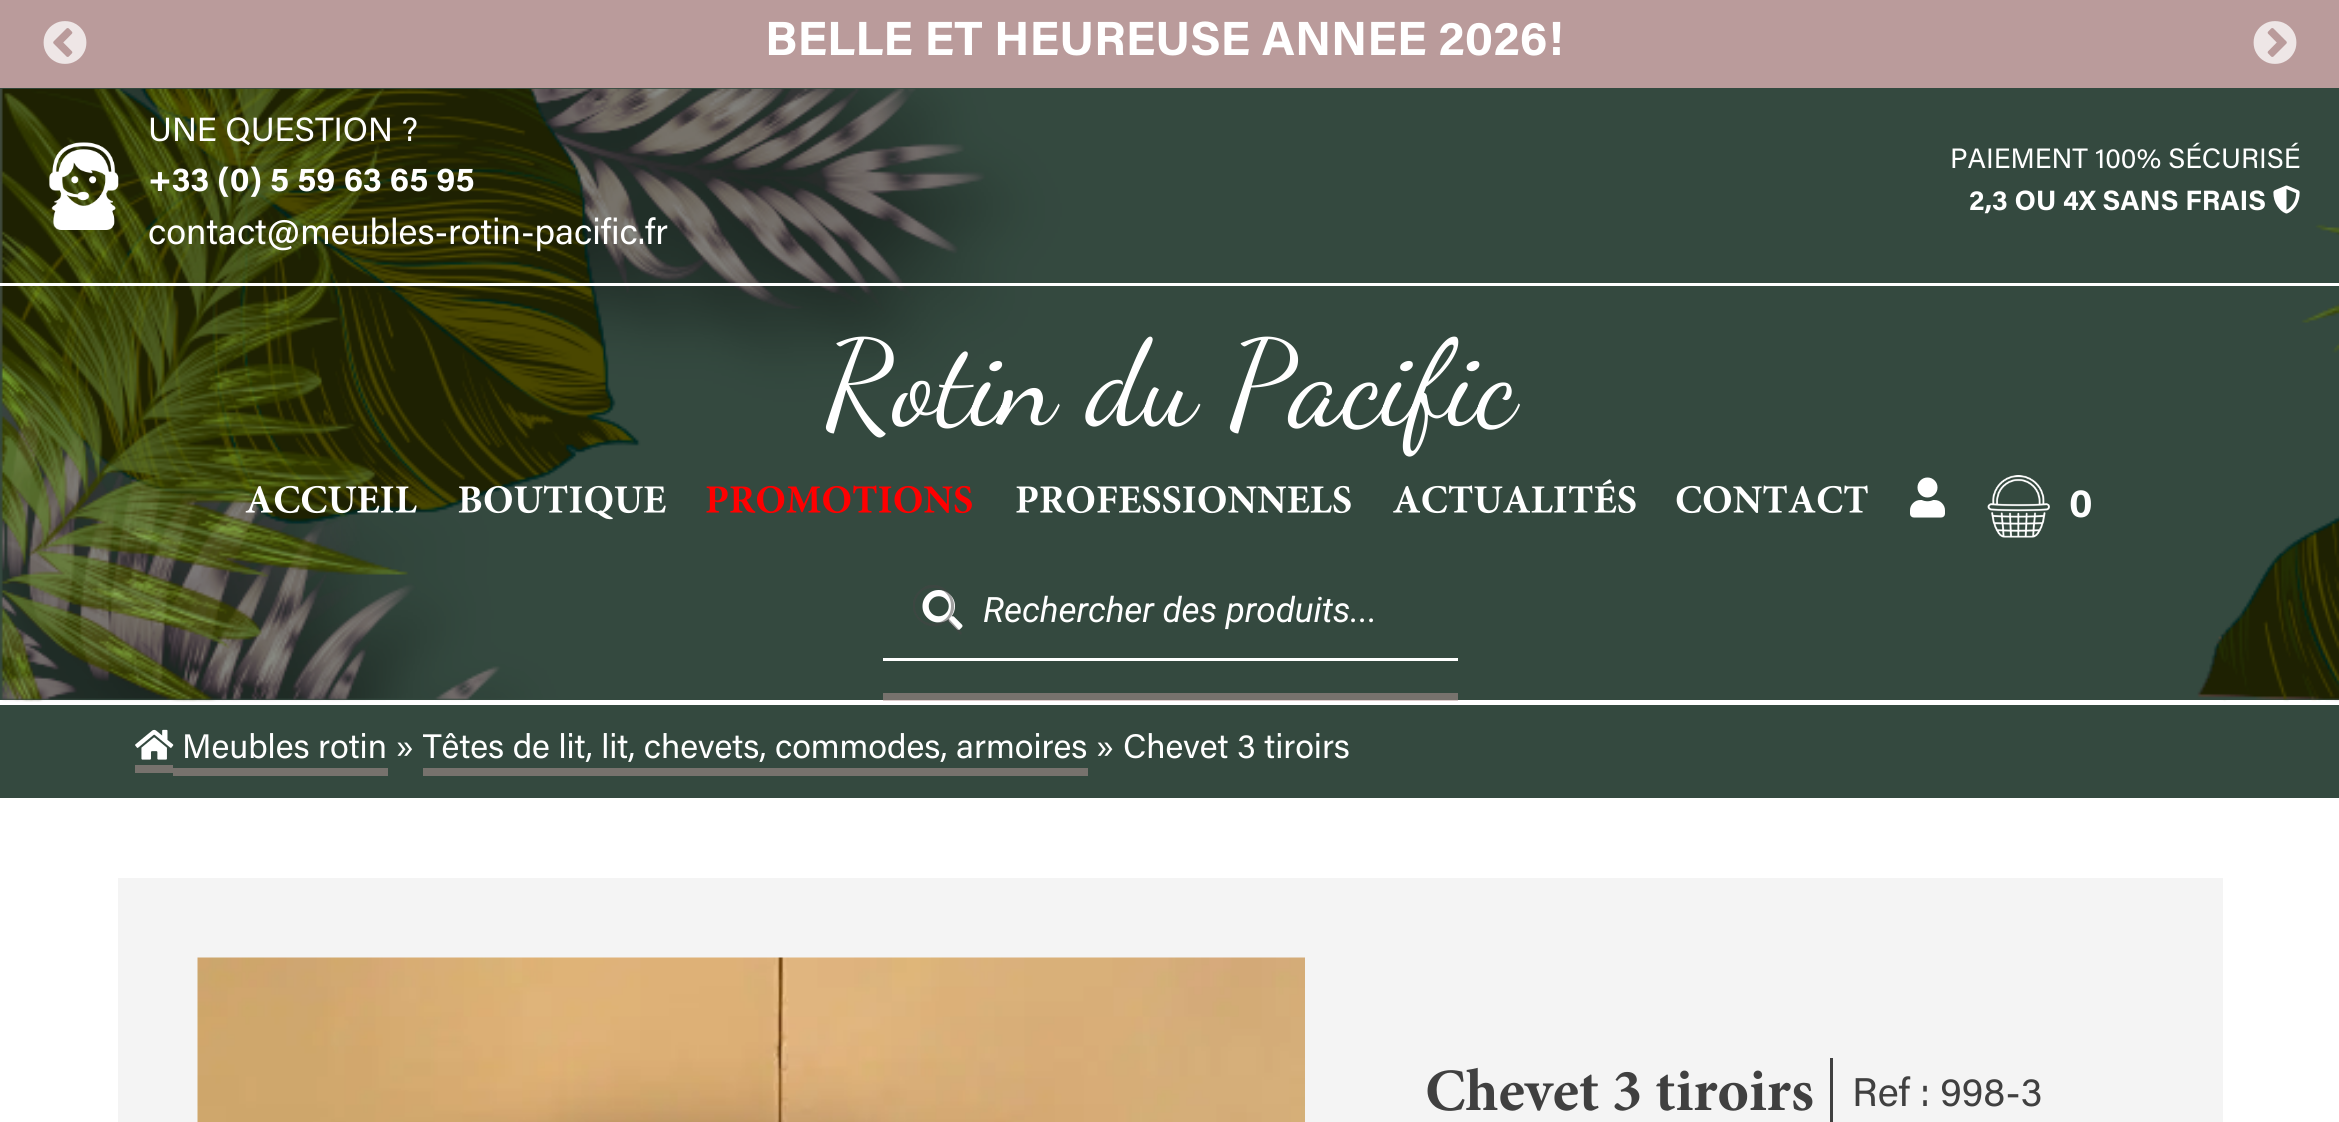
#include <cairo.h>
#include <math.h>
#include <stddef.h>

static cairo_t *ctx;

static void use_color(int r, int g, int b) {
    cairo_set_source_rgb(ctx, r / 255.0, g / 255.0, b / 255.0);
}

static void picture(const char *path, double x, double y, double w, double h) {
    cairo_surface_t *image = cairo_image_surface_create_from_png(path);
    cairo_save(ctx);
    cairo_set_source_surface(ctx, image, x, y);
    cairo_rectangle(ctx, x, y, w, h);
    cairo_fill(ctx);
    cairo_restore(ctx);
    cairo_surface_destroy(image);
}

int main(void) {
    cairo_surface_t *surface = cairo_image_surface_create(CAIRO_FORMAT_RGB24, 2339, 1122);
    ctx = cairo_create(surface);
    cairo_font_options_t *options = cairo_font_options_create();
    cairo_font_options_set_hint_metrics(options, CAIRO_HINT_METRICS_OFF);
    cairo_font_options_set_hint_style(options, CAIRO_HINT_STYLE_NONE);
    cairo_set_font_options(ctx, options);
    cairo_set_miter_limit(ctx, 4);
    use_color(255, 255, 255);
    cairo_paint(ctx);
    use_color(186, 155, 155);
    cairo_rectangle(ctx, 0, 0, 2339, 88);
    cairo_fill(ctx);
    picture("img1.png", 43, 21, 44, 43);
    cairo_select_font_face(ctx, "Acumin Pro", CAIRO_FONT_SLANT_NORMAL, CAIRO_FONT_WEIGHT_BOLD);
    cairo_set_font_size(ctx, 48);
    use_color(255, 255, 255);
    cairo_move_to(ctx, 765, 55);
    cairo_show_text(ctx, "BELLE ET HEUREUSE ANNEE 2026!");
    picture("img2.png", 2253, 21, 44, 43);
    use_color(52, 73, 63);
    cairo_rectangle(ctx, 0, 88, 2339, 612);
    cairo_fill(ctx);
    use_color(119, 114, 109);
    cairo_rectangle(ctx, 883, 693, 575, 7);
    cairo_fill(ctx);
    use_color(221, 205, 205);
    cairo_rectangle(ctx, 883, 700, 575, 1);
    cairo_fill(ctx);
    picture("img3.png", 0, 88, 2339, 614);
    use_color(255, 255, 255);
    cairo_rectangle(ctx, 0, 283, 2339, 3);
    cairo_fill(ctx);
    picture("img4.png", 49, 142, 70, 88);
    cairo_select_font_face(ctx, "Acumin Pro", CAIRO_FONT_SLANT_NORMAL, CAIRO_FONT_WEIGHT_NORMAL);
    cairo_set_font_size(ctx, 33.5);
    cairo_move_to(ctx, 148, 141);
    cairo_show_text(ctx, "UNE QUESTION ?");
    cairo_select_font_face(ctx, "Acumin Pro", CAIRO_FONT_SLANT_NORMAL, CAIRO_FONT_WEIGHT_BOLD);
    cairo_move_to(ctx, 148, 191);
    cairo_show_text(ctx, "+33 (0) 5 59 63 65 95");
    cairo_select_font_face(ctx, "Acumin Pro", CAIRO_FONT_SLANT_NORMAL, CAIRO_FONT_WEIGHT_NORMAL);
    cairo_set_font_size(ctx, 36);
    cairo_move_to(ctx, 148, 244);
    cairo_show_text(ctx, "contact@meubles-rotin-pacific.fr");
    cairo_set_font_size(ctx, 28);
    cairo_move_to(ctx, 1950, 168);
    cairo_show_text(ctx, "PAIEMENT 100% SÉCURISÉ");
    cairo_select_font_face(ctx, "Acumin Pro", CAIRO_FONT_SLANT_NORMAL, CAIRO_FONT_WEIGHT_BOLD);
    cairo_move_to(ctx, 1969, 210);
    cairo_show_text(ctx, "2,3 OU 4X SANS FRAIS");
    picture("img5.png", 2273, 185, 27, 29);
    cairo_select_font_face(ctx, "Dancing Script", CAIRO_FONT_SLANT_NORMAL, CAIRO_FONT_WEIGHT_NORMAL);
    cairo_set_font_size(ctx, 120);
    cairo_move_to(ctx, 824, 423);
    cairo_show_text(ctx, "Rotin du Pacific");
    picture("img6.png", 245, 485, 172, 29);
    picture("img7.png", 458, 485, 208, 35);
    picture("img8.png", 706, 485, 266, 29);
    picture("img9.png", 1016, 485, 335, 29);
    picture("img10.png", 1393, 479, 243, 35);
    picture("img11.png", 1676, 485, 192, 29);
    picture("img12.png", 1910, 477, 35, 41);
    picture("img13.png", 1987, 475, 63, 63);
    cairo_select_font_face(ctx, "Acumin Pro", CAIRO_FONT_SLANT_NORMAL, CAIRO_FONT_WEIGHT_BOLD);
    cairo_set_font_size(ctx, 40);
    cairo_move_to(ctx, 2069, 517);
    cairo_show_text(ctx, "0");
    picture("img14.png", 922, 590, 41, 40);
    cairo_save(ctx);
    cairo_rectangle(ctx, 913, 585, 50, 50);
    cairo_clip(ctx);
    cairo_set_source_rgba(ctx, 0.267, 0.267, 0.267, 0.5);
    cairo_new_path(ctx);
    cairo_move_to(ctx, 962, 633);
    cairo_line_to(ctx, 949, 619);
    cairo_curve_to(ctx, 966, 600, 937, 572, 919, 591);
    cairo_curve_to(ctx, 900, 610, 927, 638, 947, 621);
    cairo_line_to(ctx, 961, 635);
    cairo_close_path(ctx);
    cairo_move_to(ctx, 915, 606);
    cairo_curve_to(ctx, 915, 582, 951, 582, 951, 606);
    cairo_curve_to(ctx, 951, 629, 915, 629, 915, 606);
    cairo_close_path(ctx);
    cairo_fill(ctx);
    cairo_restore(ctx);
    cairo_rectangle(ctx, 883, 658, 575, 3);
    cairo_fill(ctx);
    cairo_select_font_face(ctx, "Roboto", CAIRO_FONT_SLANT_ITALIC, CAIRO_FONT_WEIGHT_NORMAL);
    cairo_set_font_size(ctx, 35);
    cairo_move_to(ctx, 983, 622);
    cairo_show_text(ctx, "Rechercher des produits...");
    use_color(52, 73, 63);
    cairo_rectangle(ctx, 0, 705, 2339, 93);
    cairo_fill(ctx);
    use_color(119, 114, 109);
    cairo_rectangle(ctx, 135, 765, 38, 8);
    cairo_fill(ctx);
    cairo_rectangle(ctx, 173, 768, 215, 8);
    cairo_fill(ctx);
    picture("img15.png", 135, 729, 39, 31);
    cairo_select_font_face(ctx, "Acumin Pro", CAIRO_FONT_SLANT_NORMAL, CAIRO_FONT_WEIGHT_NORMAL);
    cairo_set_font_size(ctx, 34);
    use_color(255, 255, 255);
    cairo_move_to(ctx, 182, 758);
    cairo_show_text(ctx, "Meubles rotin » Têtes de lit, lit, chevets, commodes, armoires » Chevet 3 tiroirs");
    use_color(119, 114, 109);
    cairo_rectangle(ctx, 423, 768, 665, 8);
    cairo_fill(ctx);
    use_color(244, 244, 244);
    cairo_rectangle(ctx, 118, 878, 2105, 244);
    cairo_fill(ctx);
    picture("img16.png", 197, 957, 1108, 165);
    picture("img17.png", 1427, 1067, 386, 44);
    use_color(64, 64, 64);
    cairo_rectangle(ctx, 1830, 1058, 3, 64);
    cairo_fill(ctx);
    cairo_set_font_size(ctx, 40);
    cairo_move_to(ctx, 1852, 1106);
    cairo_show_text(ctx, "Ref : 998-3");
    cairo_surface_write_to_png(surface, "result.png");
    cairo_font_options_destroy(options);
    cairo_destroy(ctx);
    cairo_surface_destroy(surface);
    return 0;
}
